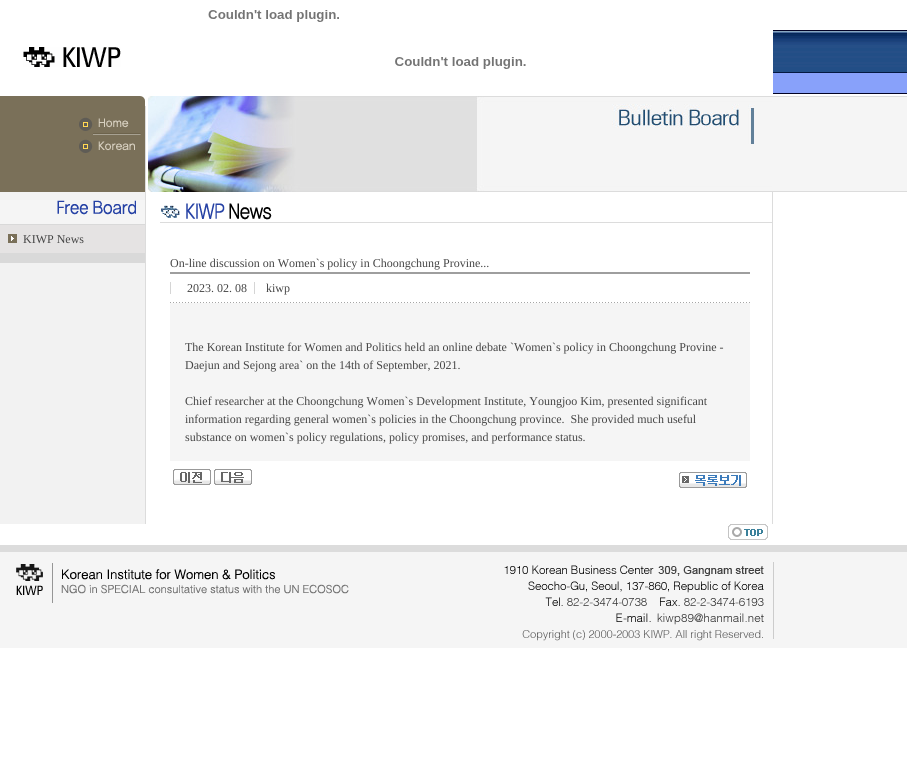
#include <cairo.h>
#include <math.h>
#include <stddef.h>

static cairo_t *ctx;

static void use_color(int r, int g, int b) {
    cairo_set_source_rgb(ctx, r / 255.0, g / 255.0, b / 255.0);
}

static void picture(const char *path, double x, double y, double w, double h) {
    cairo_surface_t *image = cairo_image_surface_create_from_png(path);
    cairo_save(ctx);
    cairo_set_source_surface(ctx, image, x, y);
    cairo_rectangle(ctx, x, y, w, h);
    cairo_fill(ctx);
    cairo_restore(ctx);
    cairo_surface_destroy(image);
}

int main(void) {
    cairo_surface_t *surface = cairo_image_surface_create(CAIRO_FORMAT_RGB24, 907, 758);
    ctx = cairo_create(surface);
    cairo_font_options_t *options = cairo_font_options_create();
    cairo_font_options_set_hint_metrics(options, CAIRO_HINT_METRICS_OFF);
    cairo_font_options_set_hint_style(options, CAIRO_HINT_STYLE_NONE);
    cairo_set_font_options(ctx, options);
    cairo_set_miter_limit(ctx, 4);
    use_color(255, 255, 255);
    cairo_paint(ctx);
    picture("img1.png", 208, 10, 131, 12);
    picture("img2.png", 23, 47, 98, 20);
    picture("img3.png", 395, 57, 131, 12);
    picture("img4.png", 773, 30, 134, 64);
    use_color(220, 220, 220);
    cairo_rectangle(ctx, 772, 96, 1, 428);
    cairo_fill(ctx);
    use_color(245, 245, 245);
    cairo_rectangle(ctx, 772, 97, 135, 94);
    cairo_fill(ctx);
    use_color(242, 242, 242);
    cairo_rectangle(ctx, 0, 192, 145, 332);
    cairo_fill(ctx);
    use_color(122, 112, 89);
    cairo_rectangle(ctx, 0, 96, 145, 96);
    cairo_fill(ctx);
    picture("img5.png", 140, 96, 5, 5);
    picture("img6.png", 79, 117, 62, 18);
    picture("img7.png", 79, 139, 56, 14);
    picture("img8.png", 0, 200, 145, 25);
    use_color(229, 227, 227);
    cairo_rectangle(ctx, 0, 225, 145, 28);
    cairo_fill(ctx);
    picture("img9.png", 8, 234, 9, 9);
    cairo_select_font_face(ctx, "Liberation Serif", CAIRO_FONT_SLANT_NORMAL, CAIRO_FONT_WEIGHT_NORMAL);
    cairo_set_font_size(ctx, 12);
    use_color(69, 69, 69);
    cairo_move_to(ctx, 23, 243);
    cairo_show_text(ctx, "KIWP News");
    use_color(217, 217, 217);
    cairo_rectangle(ctx, 0, 253, 145, 10);
    cairo_fill(ctx);
    use_color(220, 220, 220);
    cairo_rectangle(ctx, 145, 106, 1, 418);
    cairo_fill(ctx);
    cairo_rectangle(ctx, 773, 96, 134, 1);
    cairo_fill(ctx);
    cairo_rectangle(ctx, 773, 191, 134, 1);
    cairo_fill(ctx);
    picture("img10.png", 148, 96, 624, 96);
    picture("img11.png", 161, 203, 111, 17);
    cairo_rectangle(ctx, 160, 222, 612, 1);
    cairo_fill(ctx);
    use_color(69, 69, 69);
    cairo_move_to(ctx, 170, 267);
    cairo_show_text(ctx, "On-line discussion on Women`s policy in Choongchung Provine...");
    use_color(158, 158, 158);
    cairo_rectangle(ctx, 170, 272, 580, 2);
    cairo_fill(ctx);
    use_color(213, 213, 213);
    cairo_rectangle(ctx, 170, 282, 1, 12);
    cairo_fill(ctx);
    use_color(69, 69, 69);
    cairo_move_to(ctx, 187, 292);
    cairo_show_text(ctx, "2023. 02. 08");
    use_color(213, 213, 213);
    cairo_rectangle(ctx, 254, 282, 1, 12);
    cairo_fill(ctx);
    use_color(69, 69, 69);
    cairo_move_to(ctx, 266, 292);
    cairo_show_text(ctx, "kiwp");
    picture("img12.png", 170, 302, 580, 1);
    use_color(245, 245, 245);
    cairo_rectangle(ctx, 170, 303, 580, 158);
    cairo_fill(ctx);
    use_color(69, 69, 69);
    cairo_move_to(ctx, 185, 351);
    cairo_show_text(ctx, "The Korean Institute for Women and Politics held an online debate `Women`s policy in Choongchung Provine -");
    cairo_move_to(ctx, 185, 369);
    cairo_show_text(ctx, "Daejun and Sejong area` on the 14th of September, 2021.");
    cairo_move_to(ctx, 185, 405);
    cairo_show_text(ctx, "Chief researcher at the Choongchung Women`s Development Institute, Youngjoo Kim, presented significant");
    cairo_move_to(ctx, 185, 423);
    cairo_show_text(ctx, "information regarding general women`s policies in the Choongchung province.  She provided much useful");
    cairo_move_to(ctx, 185, 441);
    cairo_show_text(ctx, "substance on women`s policy regulations, policy promises, and performance status.");
    picture("img13.png", 173, 469, 38, 16);
    picture("img14.png", 214, 469, 38, 16);
    picture("img15.png", 679, 472, 68, 16);
    picture("img16.png", 728, 524, 40, 16);
    use_color(220, 220, 220);
    cairo_rectangle(ctx, 0, 545, 907, 7);
    cairo_fill(ctx);
    use_color(245, 245, 245);
    cairo_rectangle(ctx, 0, 552, 907, 96);
    cairo_fill(ctx);
    picture("img17.png", 16, 563, 333, 40);
    picture("img18.png", 504, 562, 270, 79);
    cairo_surface_write_to_png(surface, "result.png");
    cairo_font_options_destroy(options);
    cairo_destroy(ctx);
    cairo_surface_destroy(surface);
    return 0;
}
